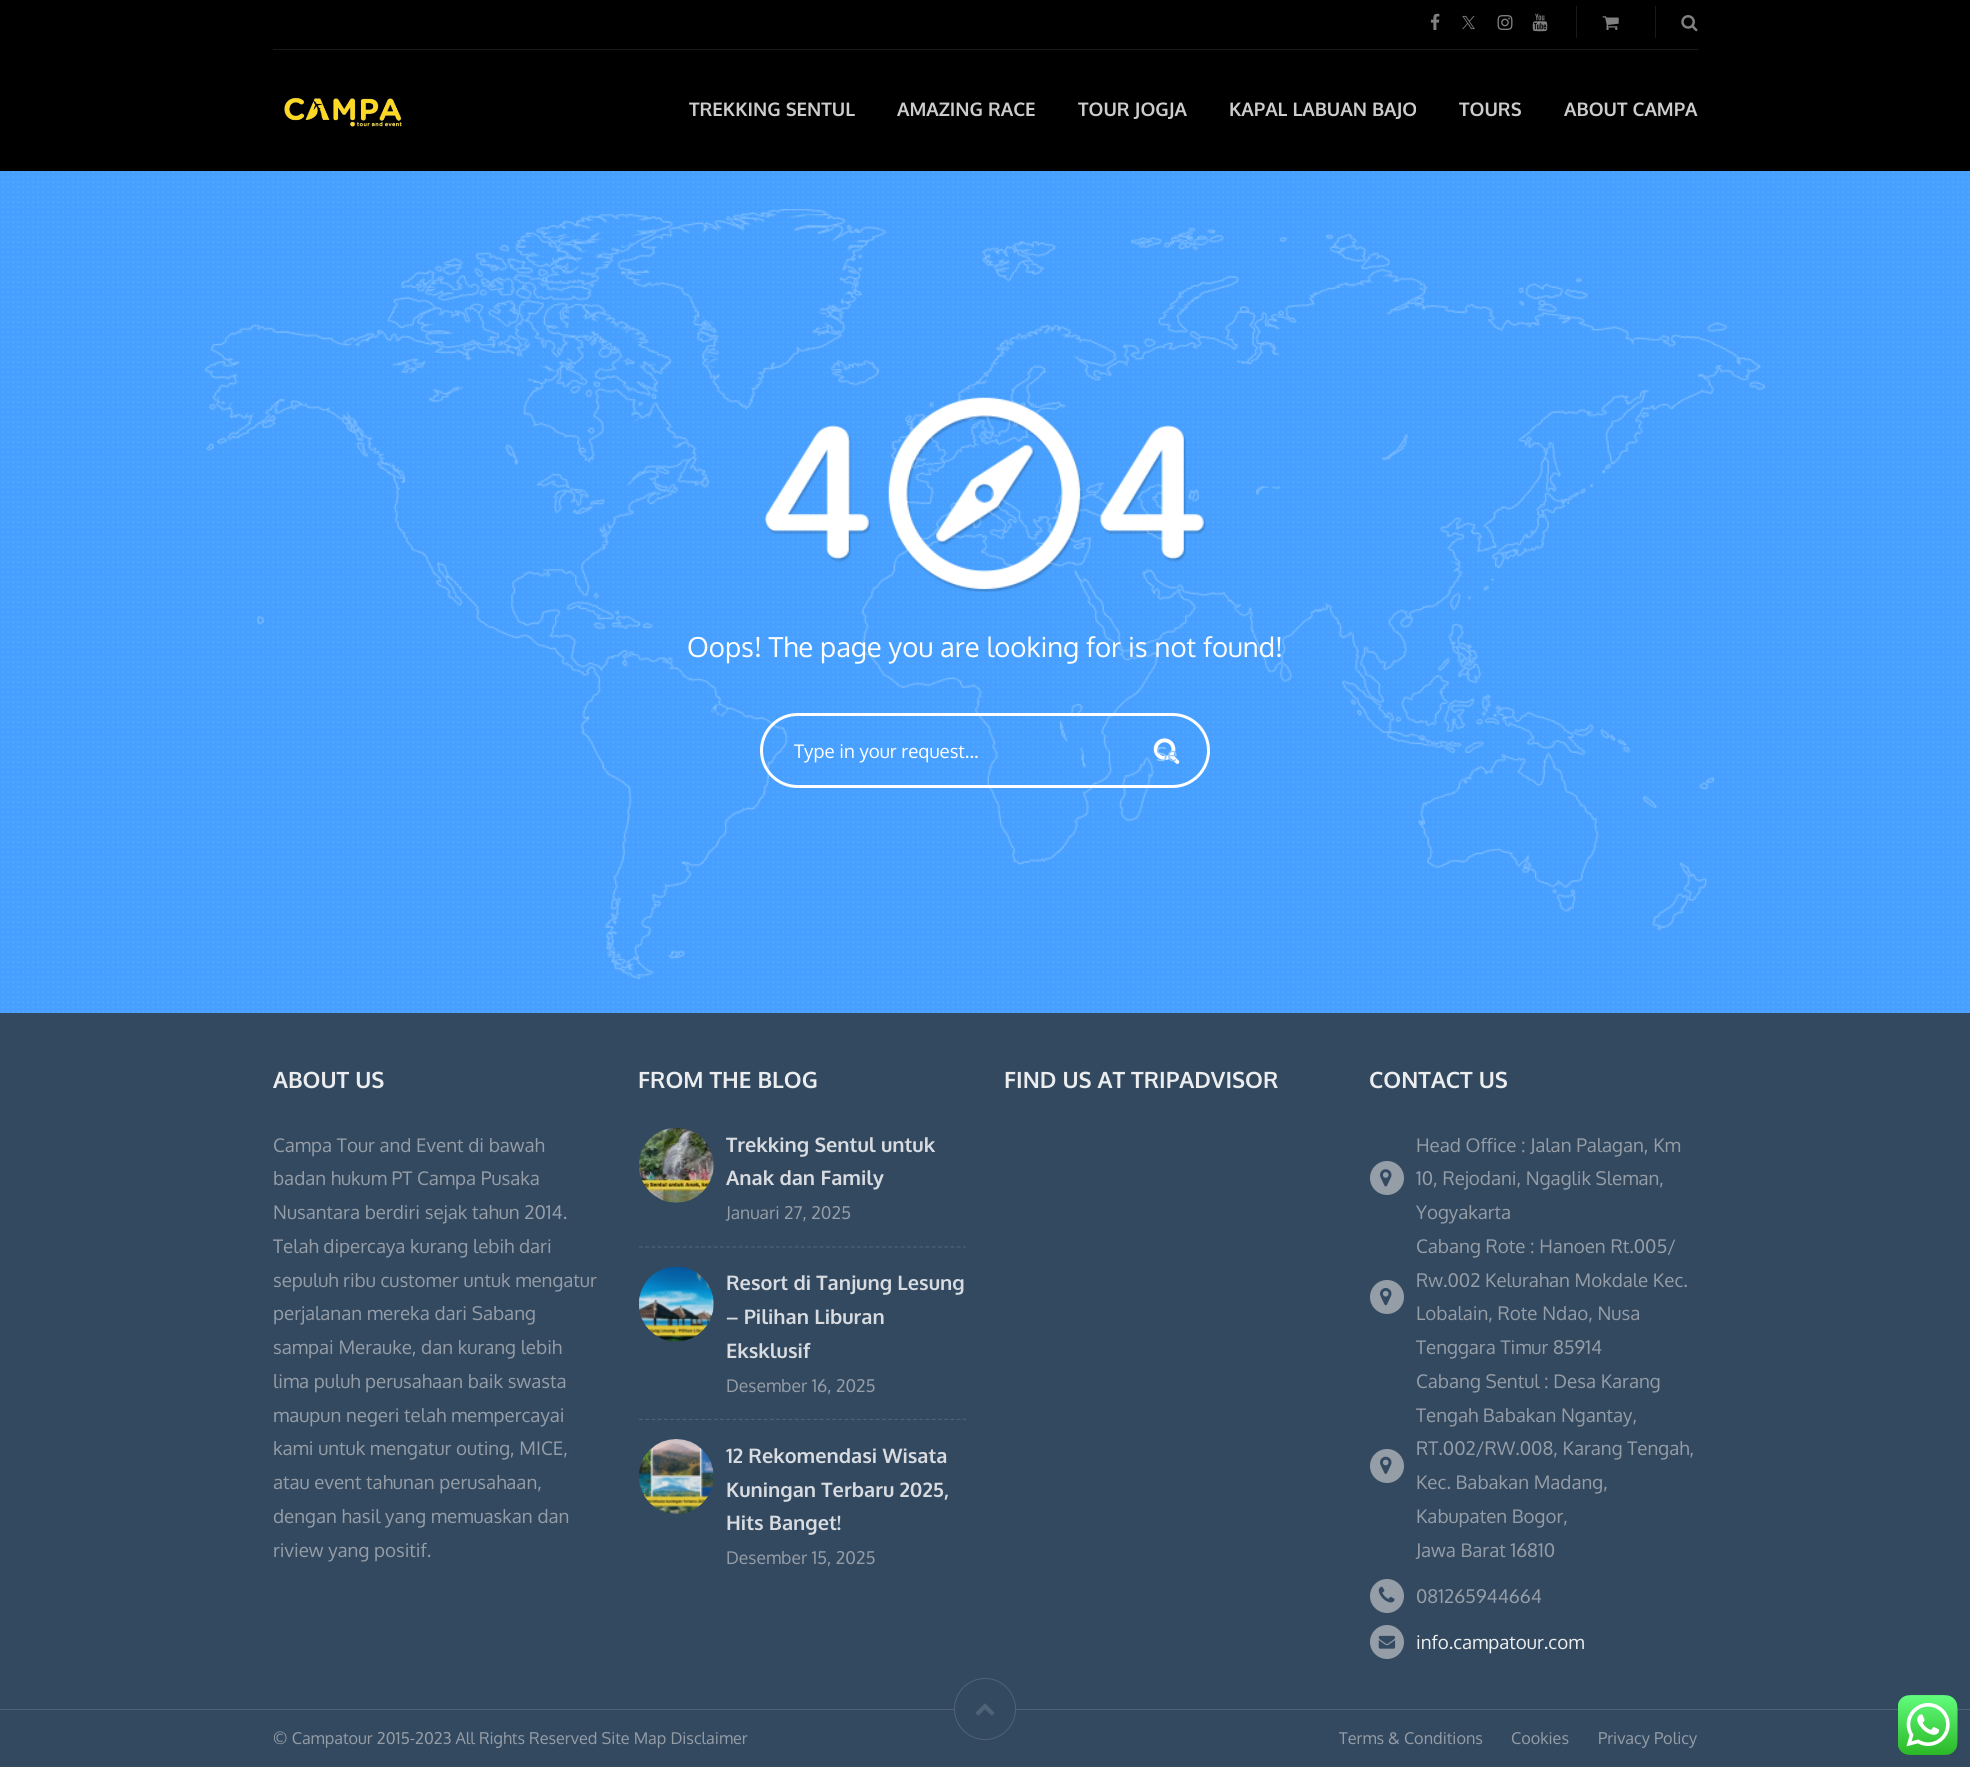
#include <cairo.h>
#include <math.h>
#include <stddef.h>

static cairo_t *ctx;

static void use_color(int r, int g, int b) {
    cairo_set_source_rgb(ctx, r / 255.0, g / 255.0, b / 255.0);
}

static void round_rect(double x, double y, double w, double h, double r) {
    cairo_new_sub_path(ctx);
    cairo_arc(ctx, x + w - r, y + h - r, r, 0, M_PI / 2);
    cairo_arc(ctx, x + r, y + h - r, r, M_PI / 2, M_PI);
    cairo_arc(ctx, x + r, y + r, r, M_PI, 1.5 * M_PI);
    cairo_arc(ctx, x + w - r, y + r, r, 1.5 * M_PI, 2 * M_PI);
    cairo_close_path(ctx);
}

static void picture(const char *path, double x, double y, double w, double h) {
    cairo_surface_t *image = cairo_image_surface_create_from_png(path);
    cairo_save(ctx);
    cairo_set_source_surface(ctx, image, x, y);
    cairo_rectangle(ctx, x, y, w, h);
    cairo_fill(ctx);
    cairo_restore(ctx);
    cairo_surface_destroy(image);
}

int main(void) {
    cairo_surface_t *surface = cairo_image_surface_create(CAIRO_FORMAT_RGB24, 1970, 1767);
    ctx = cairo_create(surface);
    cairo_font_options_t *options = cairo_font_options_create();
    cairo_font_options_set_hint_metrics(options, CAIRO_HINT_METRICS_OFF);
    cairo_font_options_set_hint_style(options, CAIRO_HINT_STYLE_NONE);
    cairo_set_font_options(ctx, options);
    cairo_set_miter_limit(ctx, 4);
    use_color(0, 0, 0);
    cairo_paint(ctx);
    picture("img1.png", 1430, 13, 10, 17);
    picture("img2.png", 1462, 15, 13, 15);
    picture("img3.png", 1497, 15, 16, 15);
    picture("img4.png", 1532, 13, 16, 19);
    use_color(26, 26, 26);
    cairo_rectangle(ctx, 1576, 6, 1, 32);
    cairo_fill(ctx);
    picture("img5.png", 1602, 16, 17, 14);
    cairo_rectangle(ctx, 1655, 6, 1, 32);
    cairo_fill(ctx);
    picture("img6.png", 1681, 15, 17, 17);
    cairo_rectangle(ctx, 273, 49, 1425, 1);
    cairo_fill(ctx);
    picture("img7.png", 284, 98, 118, 29);
    cairo_select_font_face(ctx, "Oxygen", CAIRO_FONT_SLANT_NORMAL, CAIRO_FONT_WEIGHT_BOLD);
    cairo_set_font_size(ctx, 18.75);
    use_color(204, 204, 204);
    cairo_move_to(ctx, 689, 116);
    cairo_show_text(ctx, "TREKKING SENTUL");
    cairo_move_to(ctx, 897, 116);
    cairo_show_text(ctx, "AMAZING RACE");
    cairo_move_to(ctx, 1078, 116);
    cairo_show_text(ctx, "TOUR JOGJA");
    cairo_move_to(ctx, 1229, 116);
    cairo_show_text(ctx, "KAPAL LABUAN BAJO");
    cairo_move_to(ctx, 1459, 116);
    cairo_show_text(ctx, "TOURS");
    cairo_move_to(ctx, 1564, 116);
    cairo_show_text(ctx, "ABOUT CAMPA");
    use_color(71, 160, 255);
    cairo_rectangle(ctx, 0, 171, 1970, 842);
    cairo_fill(ctx);
    picture("img8.png", 2, 171, 1967, 842);
    picture("img10.png", 764, 397, 442, 195);
    picture("img9.png", 205, 209, 1560, 770);
    cairo_select_font_face(ctx, "Oxygen", CAIRO_FONT_SLANT_NORMAL, CAIRO_FONT_WEIGHT_NORMAL);
    cairo_set_font_size(ctx, 27.5);
    use_color(255, 255, 255);
    cairo_move_to(ctx, 687, 657);
    cairo_show_text(ctx, "Oops! The page you are looking for is not found!");
    picture("img11.png", 1153, 738, 27, 26);
    round_rect(761.5, 714.5, 447, 72, 36);
    cairo_set_line_width(ctx, 3);
    cairo_stroke(ctx);
    cairo_set_font_size(ctx, 18.75);
    cairo_move_to(ctx, 794, 758);
    cairo_show_text(ctx, "Type in your request...");
    use_color(146, 199, 255);
    cairo_move_to(ctx, 1156, 761);
    cairo_show_text(ctx, "Se");
    use_color(51, 73, 96);
    cairo_rectangle(ctx, 0, 1013, 1970, 754);
    cairo_fill(ctx);
    cairo_select_font_face(ctx, "Oxygen", CAIRO_FONT_SLANT_NORMAL, CAIRO_FONT_WEIGHT_BOLD);
    cairo_set_font_size(ctx, 22.5);
    use_color(235, 237, 239);
    cairo_move_to(ctx, 273, 1088);
    cairo_show_text(ctx, "ABOUT US");
    cairo_select_font_face(ctx, "Oxygen", CAIRO_FONT_SLANT_NORMAL, CAIRO_FONT_WEIGHT_NORMAL);
    cairo_set_font_size(ctx, 18.75);
    use_color(149, 157, 167);
    cairo_move_to(ctx, 273, 1152);
    cairo_show_text(ctx, "Campa Tour and Event di bawah");
    cairo_move_to(ctx, 273, 1185);
    cairo_show_text(ctx, "badan hukum PT Campa Pusaka");
    cairo_move_to(ctx, 273, 1219);
    cairo_show_text(ctx, "Nusantara berdiri sejak tahun 2014.");
    cairo_move_to(ctx, 273, 1253);
    cairo_show_text(ctx, "Telah dipercaya kurang lebih dari");
    cairo_move_to(ctx, 273, 1287);
    cairo_show_text(ctx, "sepuluh ribu customer untuk mengatur");
    cairo_move_to(ctx, 273, 1320);
    cairo_show_text(ctx, "perjalanan mereka dari Sabang");
    cairo_move_to(ctx, 273, 1354);
    cairo_show_text(ctx, "sampai Merauke, dan kurang lebih");
    cairo_move_to(ctx, 273, 1388);
    cairo_show_text(ctx, "lima puluh perusahaan baik swasta");
    cairo_move_to(ctx, 273, 1422);
    cairo_show_text(ctx, "maupun negeri telah mempercayai");
    cairo_move_to(ctx, 273, 1455);
    cairo_show_text(ctx, "kami untuk mengatur outing, MICE,");
    cairo_move_to(ctx, 273, 1489);
    cairo_show_text(ctx, "atau event tahunan perusahaan,");
    cairo_move_to(ctx, 273, 1523);
    cairo_show_text(ctx, "dengan hasil yang memuaskan dan");
    cairo_move_to(ctx, 273, 1557);
    cairo_show_text(ctx, "riview yang positif.");
    cairo_select_font_face(ctx, "Oxygen", CAIRO_FONT_SLANT_NORMAL, CAIRO_FONT_WEIGHT_BOLD);
    cairo_set_font_size(ctx, 22.5);
    use_color(235, 237, 239);
    cairo_move_to(ctx, 638, 1088);
    cairo_show_text(ctx, "FROM THE BLOG");
    picture("img12.png", 639, 1128, 75, 75);
    cairo_set_font_size(ctx, 20);
    use_color(216, 220, 225);
    cairo_move_to(ctx, 726, 1152);
    cairo_show_text(ctx, "Trekking Sentul untuk");
    cairo_move_to(ctx, 726, 1185);
    cairo_show_text(ctx, "Anak dan Family");
    cairo_select_font_face(ctx, "Oxygen", CAIRO_FONT_SLANT_NORMAL, CAIRO_FONT_WEIGHT_NORMAL);
    cairo_set_font_size(ctx, 17.5);
    use_color(149, 157, 167);
    cairo_move_to(ctx, 726, 1219);
    cairo_show_text(ctx, "Januari 27, 2025");
    cairo_new_path(ctx);
    cairo_move_to(ctx, 639, 1247);
    cairo_line_to(ctx, 966, 1247);
    use_color(80, 98, 117);
    cairo_set_line_width(ctx, 1.2);
    cairo_set_dash(ctx, (double[]){3.75, 2.48}, 2, 0);
    cairo_stroke(ctx);
    picture("img13.png", 639, 1266, 75, 76);
    cairo_select_font_face(ctx, "Oxygen", CAIRO_FONT_SLANT_NORMAL, CAIRO_FONT_WEIGHT_BOLD);
    cairo_set_font_size(ctx, 20);
    use_color(216, 220, 225);
    cairo_move_to(ctx, 726, 1290);
    cairo_show_text(ctx, "Resort di Tanjung Lesung");
    cairo_move_to(ctx, 726, 1324);
    cairo_show_text(ctx, "– Pilihan Liburan");
    cairo_move_to(ctx, 726, 1358);
    cairo_show_text(ctx, "Eksklusif");
    cairo_select_font_face(ctx, "Oxygen", CAIRO_FONT_SLANT_NORMAL, CAIRO_FONT_WEIGHT_NORMAL);
    cairo_set_font_size(ctx, 17.5);
    use_color(149, 157, 167);
    cairo_move_to(ctx, 726, 1392);
    cairo_show_text(ctx, "Desember 16, 2025");
    cairo_save(ctx);
    cairo_rectangle(ctx, 639, 1248, 327, 172);
    cairo_clip(ctx);
    cairo_new_path(ctx);
    cairo_move_to(ctx, 639, 1419.5);
    cairo_line_to(ctx, 966, 1419.5);
    use_color(80, 98, 117);
    cairo_stroke(ctx);
    cairo_restore(ctx);
    picture("img14.png", 639, 1439, 75, 75);
    cairo_select_font_face(ctx, "Oxygen", CAIRO_FONT_SLANT_NORMAL, CAIRO_FONT_WEIGHT_BOLD);
    cairo_set_font_size(ctx, 20);
    use_color(216, 220, 225);
    cairo_move_to(ctx, 726, 1463);
    cairo_show_text(ctx, "12 Rekomendasi Wisata");
    cairo_move_to(ctx, 726, 1497);
    cairo_show_text(ctx, "Kuningan Terbaru 2025,");
    cairo_move_to(ctx, 726, 1530);
    cairo_show_text(ctx, "Hits Banget!");
    cairo_select_font_face(ctx, "Oxygen", CAIRO_FONT_SLANT_NORMAL, CAIRO_FONT_WEIGHT_NORMAL);
    cairo_set_font_size(ctx, 17.5);
    use_color(149, 157, 167);
    cairo_move_to(ctx, 726, 1564);
    cairo_show_text(ctx, "Desember 15, 2025");
    cairo_select_font_face(ctx, "Oxygen", CAIRO_FONT_SLANT_NORMAL, CAIRO_FONT_WEIGHT_BOLD);
    cairo_set_font_size(ctx, 22.5);
    use_color(235, 237, 239);
    cairo_move_to(ctx, 1004, 1088);
    cairo_show_text(ctx, "FIND US AT TRIPADVISOR");
    cairo_move_to(ctx, 1369, 1088);
    cairo_show_text(ctx, "CONTACT US");
    use_color(149, 157, 167);
    cairo_new_path(ctx);
    cairo_arc(ctx, 1387, 1178, 17, 0, 2 * M_PI);
    cairo_fill(ctx);
    picture("img15.png", 1380, 1169, 12, 18);
    cairo_select_font_face(ctx, "Oxygen", CAIRO_FONT_SLANT_NORMAL, CAIRO_FONT_WEIGHT_NORMAL);
    cairo_set_font_size(ctx, 18.75);
    cairo_move_to(ctx, 1416, 1152);
    cairo_show_text(ctx, "Head Office : Jalan Palagan, Km");
    cairo_move_to(ctx, 1416, 1185);
    cairo_show_text(ctx, "10, Rejodani, Ngaglik Sleman,");
    cairo_move_to(ctx, 1416, 1219);
    cairo_show_text(ctx, "Yogyakarta");
    cairo_new_path(ctx);
    cairo_arc(ctx, 1387, 1297, 17, 0, 2 * M_PI);
    cairo_fill(ctx);
    picture("img16.png", 1380, 1288, 12, 18);
    cairo_move_to(ctx, 1416, 1253);
    cairo_show_text(ctx, "Cabang Rote : Hanoen Rt.005/");
    cairo_move_to(ctx, 1416, 1287);
    cairo_show_text(ctx, "Rw.002 Kelurahan Mokdale Kec.");
    cairo_move_to(ctx, 1416, 1320);
    cairo_show_text(ctx, "Lobalain, Rote Ndao, Nusa");
    cairo_move_to(ctx, 1416, 1354);
    cairo_show_text(ctx, "Tenggara Timur 85914");
    cairo_new_path(ctx);
    cairo_arc(ctx, 1387, 1466, 17, 0, 2 * M_PI);
    cairo_fill(ctx);
    picture("img17.png", 1380, 1456, 12, 18);
    cairo_move_to(ctx, 1416, 1388);
    cairo_show_text(ctx, "Cabang Sentul : Desa Karang");
    cairo_move_to(ctx, 1416, 1422);
    cairo_show_text(ctx, "Tengah Babakan Ngantay,");
    cairo_move_to(ctx, 1416, 1455);
    cairo_show_text(ctx, "RT.002/RW.008, Karang Tengah,");
    cairo_move_to(ctx, 1416, 1489);
    cairo_show_text(ctx, "Kec. Babakan Madang,");
    cairo_move_to(ctx, 1416, 1523);
    cairo_show_text(ctx, "Kabupaten Bogor,");
    cairo_move_to(ctx, 1416, 1557);
    cairo_show_text(ctx, "Jawa Barat 16810");
    cairo_new_path(ctx);
    cairo_arc(ctx, 1387, 1596, 17, 0, 2 * M_PI);
    cairo_fill(ctx);
    picture("img18.png", 1378, 1586, 17, 17);
    cairo_move_to(ctx, 1416, 1603);
    cairo_show_text(ctx, "081265944664");
    cairo_new_path(ctx);
    cairo_arc(ctx, 1387, 1642, 17, 0, 2 * M_PI);
    cairo_fill(ctx);
    picture("img19.png", 1378, 1635, 18, 14);
    use_color(235, 237, 239);
    cairo_move_to(ctx, 1416, 1649);
    cairo_show_text(ctx, "info.campatour.com");
    use_color(80, 98, 117);
    cairo_rectangle(ctx, 0, 1709, 1970, 1);
    cairo_fill(ctx);
    use_color(51, 73, 96);
    cairo_arc(ctx, 985, 1709, 30.5, 0, 2 * M_PI);
    cairo_fill_preserve(ctx);
    use_color(80, 98, 117);
    cairo_set_line_width(ctx, 1);
    cairo_set_dash(ctx, NULL, 0, 0);
    cairo_stroke(ctx);
    picture("img20.png", 975, 1703, 20, 13);
    cairo_set_font_size(ctx, 16.25);
    use_color(149, 157, 167);
    cairo_move_to(ctx, 273, 1744);
    cairo_show_text(ctx, "© Campatour 2015-2023 All Rights Reserved Site Map Disclaimer");
    cairo_move_to(ctx, 1339, 1744);
    cairo_show_text(ctx, "Terms & Conditions");
    cairo_move_to(ctx, 1511, 1744);
    cairo_show_text(ctx, "Cookies");
    cairo_move_to(ctx, 1598, 1744);
    cairo_show_text(ctx, "Privacy Policy");
    picture("img21.png", 1898, 1695, 60, 60);
    cairo_surface_write_to_png(surface, "result.png");
    cairo_font_options_destroy(options);
    cairo_destroy(ctx);
    cairo_surface_destroy(surface);
    return 0;
}
